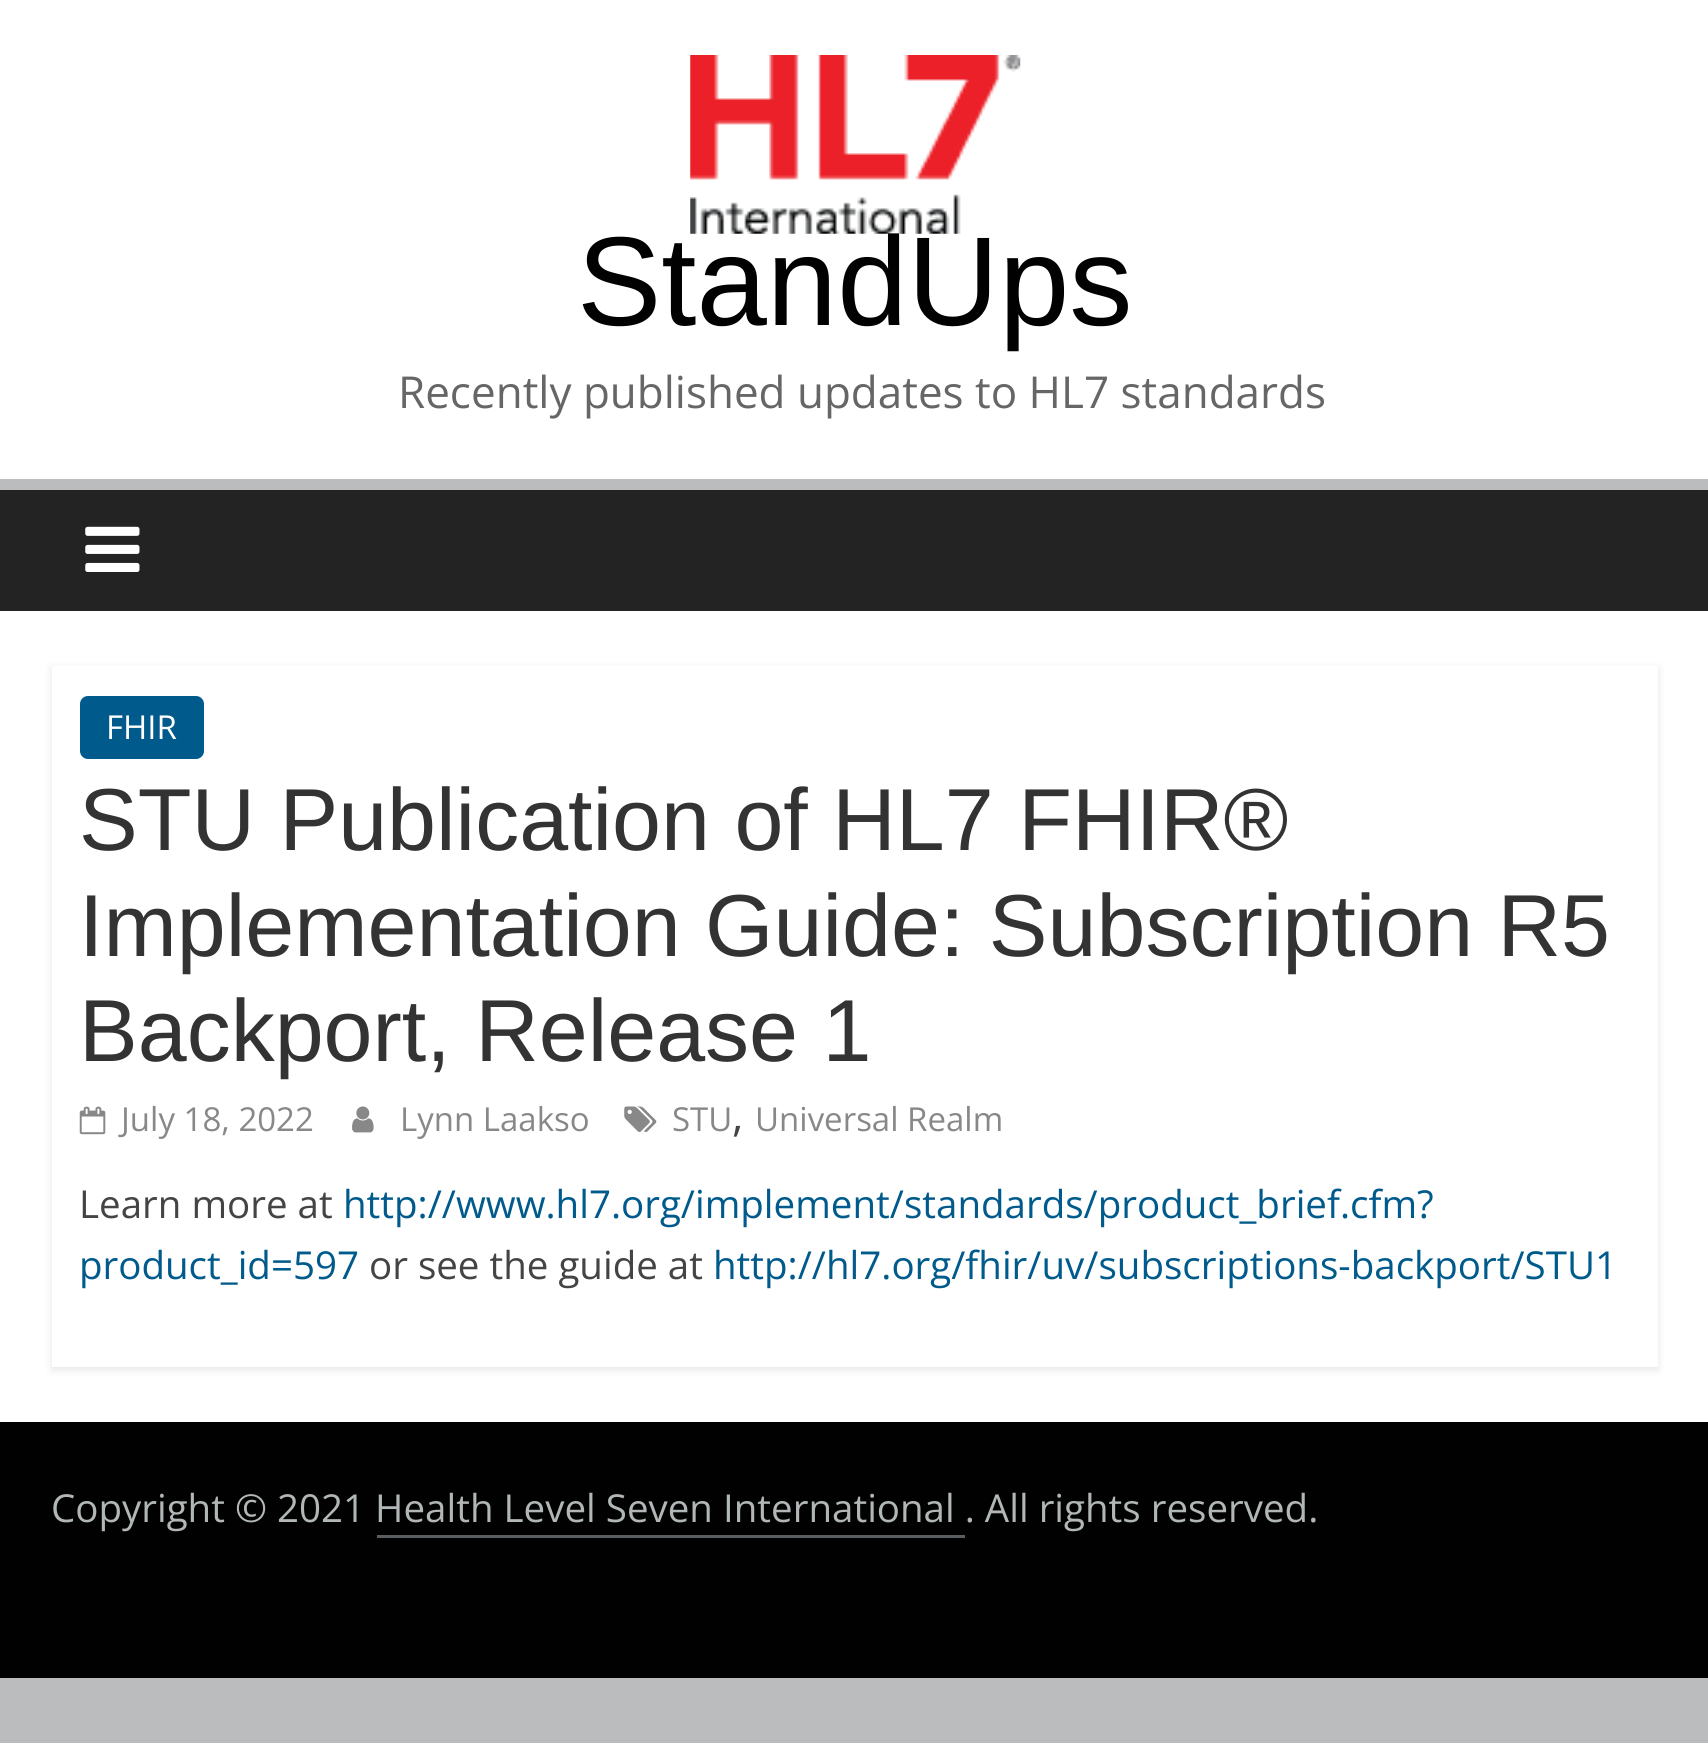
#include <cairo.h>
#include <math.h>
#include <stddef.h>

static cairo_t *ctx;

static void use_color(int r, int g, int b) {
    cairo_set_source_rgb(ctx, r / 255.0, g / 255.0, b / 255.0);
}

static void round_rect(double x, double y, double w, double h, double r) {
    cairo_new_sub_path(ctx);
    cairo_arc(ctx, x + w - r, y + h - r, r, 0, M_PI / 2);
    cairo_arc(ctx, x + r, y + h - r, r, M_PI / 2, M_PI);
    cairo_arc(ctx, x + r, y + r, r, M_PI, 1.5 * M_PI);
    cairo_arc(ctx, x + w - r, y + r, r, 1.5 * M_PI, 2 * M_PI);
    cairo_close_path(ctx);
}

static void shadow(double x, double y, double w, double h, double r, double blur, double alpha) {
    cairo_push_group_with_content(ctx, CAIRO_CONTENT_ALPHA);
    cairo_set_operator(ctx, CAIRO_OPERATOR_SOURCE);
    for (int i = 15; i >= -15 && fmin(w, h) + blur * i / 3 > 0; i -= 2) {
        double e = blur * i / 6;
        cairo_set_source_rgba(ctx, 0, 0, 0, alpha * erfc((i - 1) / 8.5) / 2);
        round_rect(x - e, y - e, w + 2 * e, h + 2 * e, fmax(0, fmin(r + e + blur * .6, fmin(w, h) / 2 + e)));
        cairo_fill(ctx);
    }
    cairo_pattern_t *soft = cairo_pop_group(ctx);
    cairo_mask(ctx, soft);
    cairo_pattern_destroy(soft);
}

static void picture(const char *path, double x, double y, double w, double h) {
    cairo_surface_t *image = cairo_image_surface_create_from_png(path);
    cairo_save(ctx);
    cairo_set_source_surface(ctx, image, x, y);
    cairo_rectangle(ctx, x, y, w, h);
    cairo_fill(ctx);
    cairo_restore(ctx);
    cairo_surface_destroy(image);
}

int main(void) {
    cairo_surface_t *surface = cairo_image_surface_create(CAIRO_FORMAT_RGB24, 1708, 1743);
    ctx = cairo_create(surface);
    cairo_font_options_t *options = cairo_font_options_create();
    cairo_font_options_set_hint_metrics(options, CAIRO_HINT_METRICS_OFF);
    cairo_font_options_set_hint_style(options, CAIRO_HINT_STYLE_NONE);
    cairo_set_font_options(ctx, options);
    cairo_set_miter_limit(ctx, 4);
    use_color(186, 188, 190);
    cairo_paint(ctx);
    use_color(255, 255, 255);
    cairo_rectangle(ctx, 0, 0, 1708, 479);
    cairo_fill(ctx);
    picture("img1.png", 690, 55, 331, 179);
    cairo_select_font_face(ctx, "Liberation Sans", CAIRO_FONT_SLANT_NORMAL, CAIRO_FONT_WEIGHT_NORMAL);
    cairo_set_font_size(ctx, 126.5);
    use_color(1, 1, 1);
    cairo_move_to(ctx, 577, 325);
    cairo_show_text(ctx, "StandUps");
    cairo_select_font_face(ctx, "Open Sans", CAIRO_FONT_SLANT_NORMAL, CAIRO_FONT_WEIGHT_NORMAL);
    cairo_set_font_size(ctx, 44);
    use_color(102, 102, 102);
    cairo_move_to(ctx, 398, 408);
    cairo_show_text(ctx, "Recently published updates to HL7 standards");
    use_color(35, 35, 35);
    cairo_rectangle(ctx, 0, 490, 1708, 121);
    cairo_fill(ctx);
    picture("img2.png", 85, 526, 55, 46);
    use_color(255, 255, 255);
    cairo_rectangle(ctx, 0, 611, 1708, 811);
    cairo_fill(ctx);
    cairo_save(ctx);
    cairo_set_fill_rule(ctx, CAIRO_FILL_RULE_EVEN_ODD);
    cairo_new_path(ctx);
    cairo_move_to(ctx, 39, 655);
    cairo_line_to(ctx, 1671, 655);
    cairo_line_to(ctx, 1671, 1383);
    cairo_line_to(ctx, 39, 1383);
    cairo_close_path(ctx);
    cairo_move_to(ctx, 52, 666);
    cairo_line_to(ctx, 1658, 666);
    cairo_line_to(ctx, 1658, 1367);
    cairo_line_to(ctx, 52, 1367);
    cairo_close_path(ctx);
    cairo_clip(ctx);
    use_color(0, 0, 0);
    shadow(52, 668, 1606, 702, 0, 4, 0.1);
    cairo_restore(ctx);
    use_color(0, 90, 140);
    round_rect(80, 696, 124, 63, 8);
    cairo_fill(ctx);
    cairo_set_font_size(ctx, 33);
    use_color(255, 255, 255);
    cairo_move_to(ctx, 106, 739);
    cairo_show_text(ctx, "FHIR");
    cairo_select_font_face(ctx, "Liberation Sans", CAIRO_FONT_SLANT_NORMAL, CAIRO_FONT_WEIGHT_NORMAL);
    cairo_set_font_size(ctx, 88);
    use_color(51, 51, 51);
    cairo_move_to(ctx, 79, 850);
    cairo_show_text(ctx, "STU Publication of HL7 FHIR®");
    cairo_move_to(ctx, 79, 956);
    cairo_show_text(ctx, "Implementation Guide: Subscription R5");
    cairo_move_to(ctx, 79, 1061);
    cairo_show_text(ctx, "Backport, Release 1");
    picture("img3.png", 79, 1106, 27, 29);
    cairo_select_font_face(ctx, "Open Sans", CAIRO_FONT_SLANT_NORMAL, CAIRO_FONT_WEIGHT_NORMAL);
    cairo_set_font_size(ctx, 33);
    use_color(136, 136, 136);
    cairo_move_to(ctx, 121, 1131);
    cairo_show_text(ctx, "July 18, 2022");
    picture("img4.png", 352, 1106, 22, 27);
    cairo_move_to(ctx, 400, 1131);
    cairo_show_text(ctx, "Lynn Laakso");
    picture("img5.png", 624, 1106, 33, 26);
    cairo_move_to(ctx, 672, 1131);
    cairo_show_text(ctx, "STU");
    cairo_set_font_size(ctx, 44);
    use_color(68, 68, 68);
    cairo_move_to(ctx, 732, 1131);
    cairo_show_text(ctx, ",");
    cairo_set_font_size(ctx, 33);
    use_color(136, 136, 136);
    cairo_move_to(ctx, 755, 1131);
    cairo_show_text(ctx, "Universal Realm");
    cairo_set_font_size(ctx, 38.5);
    use_color(68, 68, 68);
    cairo_move_to(ctx, 79, 1218);
    cairo_show_text(ctx, "Learn more at");
    use_color(0, 90, 140);
    cairo_move_to(ctx, 343, 1218);
    cairo_show_text(ctx, "http://www.hl7.org/implement/standards/product_brief.cfm?");
    cairo_move_to(ctx, 79, 1279);
    cairo_show_text(ctx, "product_id=597");
    use_color(68, 68, 68);
    cairo_move_to(ctx, 369, 1279);
    cairo_show_text(ctx, "or see the guide at");
    use_color(0, 90, 140);
    cairo_move_to(ctx, 713, 1279);
    cairo_show_text(ctx, "http://hl7.org/fhir/uv/subscriptions-backport/STU1");
    use_color(1, 1, 1);
    cairo_rectangle(ctx, 0, 1422, 1708, 256);
    cairo_fill(ctx);
    use_color(177, 182, 182);
    cairo_move_to(ctx, 51, 1522);
    cairo_show_text(ctx, "Copyright © 2021 Health Level Seven International . All rights reserved.");
    use_color(90, 93, 98);
    cairo_rectangle(ctx, 377, 1535, 588, 3);
    cairo_fill(ctx);
    cairo_surface_write_to_png(surface, "result.png");
    cairo_font_options_destroy(options);
    cairo_destroy(ctx);
    cairo_surface_destroy(surface);
    return 0;
}
